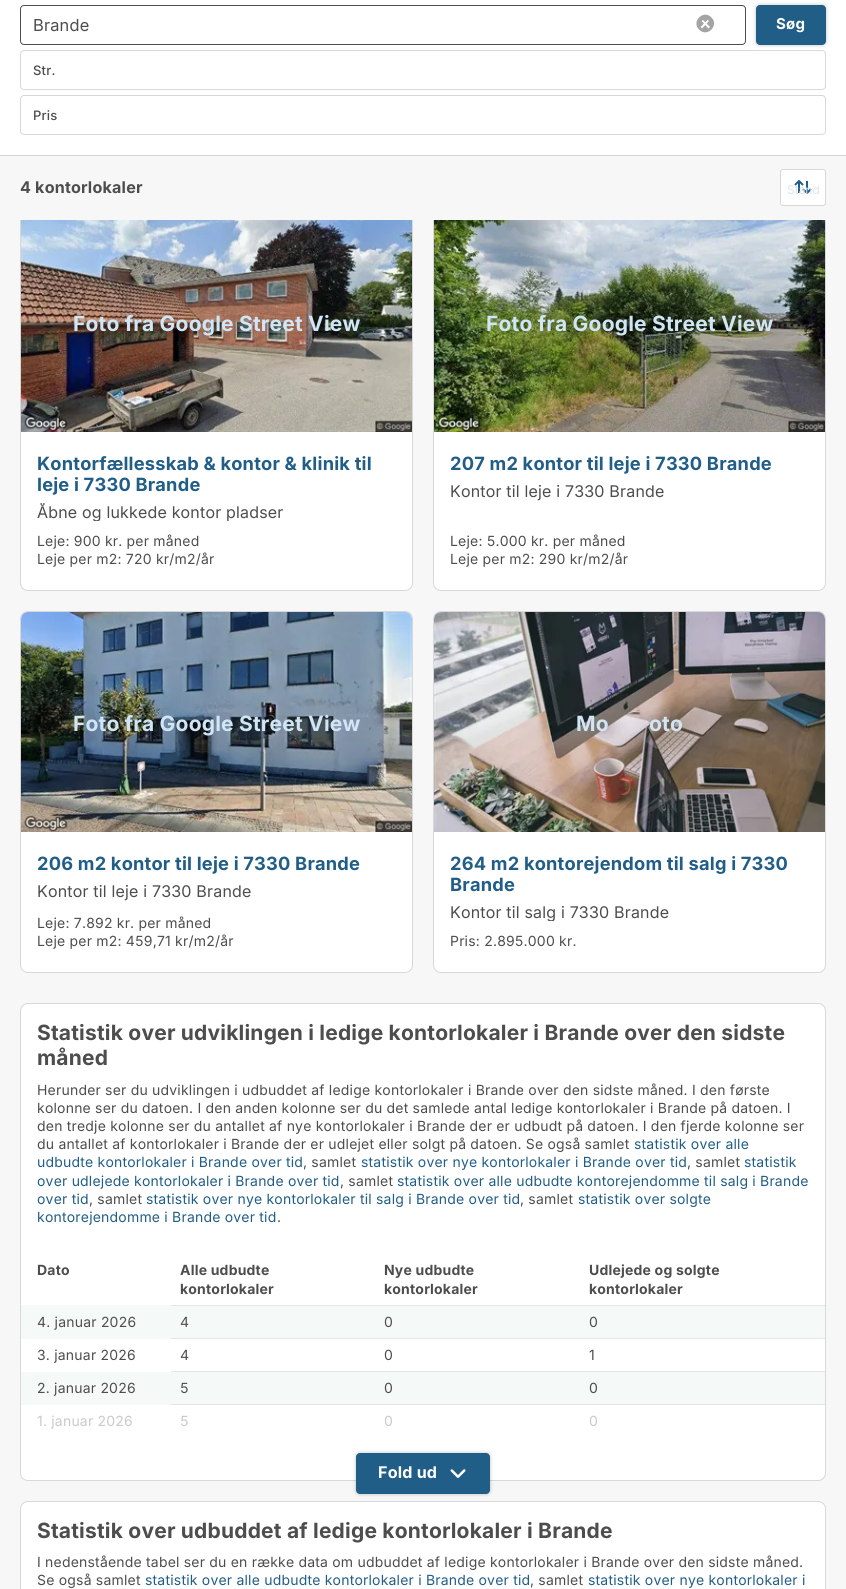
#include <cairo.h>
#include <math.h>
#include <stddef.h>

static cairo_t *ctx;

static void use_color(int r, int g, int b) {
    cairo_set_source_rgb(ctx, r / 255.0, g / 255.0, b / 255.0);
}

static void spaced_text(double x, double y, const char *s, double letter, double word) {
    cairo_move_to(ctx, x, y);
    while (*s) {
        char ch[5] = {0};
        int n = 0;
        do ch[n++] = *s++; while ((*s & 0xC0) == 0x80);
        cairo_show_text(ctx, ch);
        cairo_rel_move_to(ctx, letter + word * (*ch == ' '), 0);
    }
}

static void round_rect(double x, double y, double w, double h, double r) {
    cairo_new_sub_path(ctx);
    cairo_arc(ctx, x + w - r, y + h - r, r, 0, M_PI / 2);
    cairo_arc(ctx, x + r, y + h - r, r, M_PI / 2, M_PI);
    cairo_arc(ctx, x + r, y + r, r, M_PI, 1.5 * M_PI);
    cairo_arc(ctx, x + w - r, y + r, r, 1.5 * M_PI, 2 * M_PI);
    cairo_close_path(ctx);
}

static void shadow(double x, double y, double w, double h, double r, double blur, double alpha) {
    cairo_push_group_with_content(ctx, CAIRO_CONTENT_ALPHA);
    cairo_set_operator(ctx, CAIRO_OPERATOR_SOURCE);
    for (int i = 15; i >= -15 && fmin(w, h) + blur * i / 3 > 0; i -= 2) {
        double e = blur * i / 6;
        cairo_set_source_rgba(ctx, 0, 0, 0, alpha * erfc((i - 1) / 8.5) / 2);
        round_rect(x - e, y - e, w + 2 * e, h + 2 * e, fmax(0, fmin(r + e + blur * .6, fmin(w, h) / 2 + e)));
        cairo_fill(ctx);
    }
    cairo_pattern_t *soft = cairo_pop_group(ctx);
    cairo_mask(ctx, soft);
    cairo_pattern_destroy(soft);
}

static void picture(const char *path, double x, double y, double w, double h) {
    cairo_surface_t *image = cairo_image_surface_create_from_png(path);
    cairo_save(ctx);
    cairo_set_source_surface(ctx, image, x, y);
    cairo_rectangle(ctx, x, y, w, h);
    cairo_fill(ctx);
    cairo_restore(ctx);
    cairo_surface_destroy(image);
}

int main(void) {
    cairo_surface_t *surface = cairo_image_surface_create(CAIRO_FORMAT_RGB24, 846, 1589);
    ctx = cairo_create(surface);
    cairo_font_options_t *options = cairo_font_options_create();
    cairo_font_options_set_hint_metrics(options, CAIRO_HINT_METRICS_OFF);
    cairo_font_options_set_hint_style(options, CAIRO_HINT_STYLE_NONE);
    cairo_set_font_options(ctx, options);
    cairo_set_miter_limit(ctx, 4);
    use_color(247, 247, 247);
    cairo_paint(ctx);
    use_color(255, 255, 255);
    cairo_rectangle(ctx, 0, 0, 846, 155);
    cairo_fill(ctx);
    use_color(216, 216, 216);
    cairo_rectangle(ctx, 0, 155, 846, 1);
    cairo_fill(ctx);
    round_rect(20.5, 5.5, 725, 39, 3.5);
    use_color(77, 77, 77);
    cairo_set_line_width(ctx, 1);
    cairo_stroke(ctx);
    cairo_select_font_face(ctx, "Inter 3", CAIRO_FONT_SLANT_NORMAL, CAIRO_FONT_WEIGHT_NORMAL);
    cairo_set_font_size(ctx, 16.5);
    spaced_text(33, 31, "Brande", 0.2, 0);
    use_color(164, 164, 164);
    cairo_new_path(ctx);
    cairo_move_to(ctx, 711.5, 17.5);
    cairo_curve_to(ctx, 719.5, 25.5, 707, 38, 699, 29.5);
    cairo_curve_to(ctx, 691, 21.5, 703.5, 9, 711.5, 17.5);
    cairo_close_path(ctx);
    cairo_fill(ctx);
    use_color(255, 255, 255);
    cairo_new_path(ctx);
    cairo_move_to(ctx, 703, 20);
    cairo_line_to(ctx, 710, 27);
    cairo_line_to(ctx, 708.5, 28.5);
    cairo_line_to(ctx, 701.5, 21);
    cairo_close_path(ctx);
    cairo_fill(ctx);
    cairo_new_path(ctx);
    cairo_move_to(ctx, 707.5, 20);
    cairo_line_to(ctx, 709, 21);
    cairo_line_to(ctx, 702, 28.5);
    cairo_line_to(ctx, 700.5, 27);
    cairo_close_path(ctx);
    cairo_fill(ctx);
    use_color(0, 0, 0);
    shadow(756, 5, 70, 40, 4, 2, 0.25);
    use_color(33, 94, 135);
    round_rect(756, 5, 70, 40, 4);
    cairo_fill(ctx);
    cairo_select_font_face(ctx, "Inter", CAIRO_FONT_SLANT_NORMAL, CAIRO_FONT_WEIGHT_BOLD);
    cairo_set_font_size(ctx, 15);
    use_color(255, 255, 255);
    spaced_text(776, 29, "Søg", 0.2, 0);
    round_rect(20.5, 50.5, 805, 39, 3.5);
    use_color(216, 216, 216);
    cairo_stroke(ctx);
    cairo_select_font_face(ctx, "Inter Medium", CAIRO_FONT_SLANT_NORMAL, CAIRO_FONT_WEIGHT_NORMAL);
    cairo_set_font_size(ctx, 13);
    use_color(77, 77, 77);
    spaced_text(33, 75, "Str.", 0.2, 0);
    round_rect(20.5, 95.5, 805, 39, 3.5);
    use_color(216, 216, 216);
    cairo_stroke(ctx);
    use_color(77, 77, 77);
    spaced_text(33, 120, "Pris", 0.2, 0);
    use_color(255, 255, 255);
    round_rect(20.5, 211.5, 392, 379, 7.5);
    cairo_fill_preserve(ctx);
    use_color(216, 216, 216);
    cairo_stroke(ctx);
    use_color(255, 255, 255);
    round_rect(433.5, 211.5, 392, 379, 7.5);
    cairo_fill_preserve(ctx);
    use_color(216, 216, 216);
    cairo_stroke(ctx);
    use_color(247, 247, 247);
    cairo_rectangle(ctx, 20, 211, 806, 9);
    cairo_fill(ctx);
    cairo_select_font_face(ctx, "Inter", CAIRO_FONT_SLANT_NORMAL, CAIRO_FONT_WEIGHT_BOLD);
    cairo_set_font_size(ctx, 16.1);
    use_color(77, 77, 77);
    spaced_text(20, 193, "4 kontorlokaler", 0.2, 0);
    use_color(255, 255, 255);
    round_rect(780.5, 169.5, 45, 36, 2.5);
    cairo_fill_preserve(ctx);
    use_color(216, 216, 216);
    cairo_stroke(ctx);
    picture("img1.png", 794, 180, 18, 14);
    cairo_select_font_face(ctx, "Inter", CAIRO_FONT_SLANT_NORMAL, CAIRO_FONT_WEIGHT_NORMAL);
    cairo_set_font_size(ctx, 12);
    use_color(219, 229, 236);
    cairo_move_to(ctx, 787, 194);
    cairo_show_text(ctx, "Stand");
    picture("img2.png", 21, 220, 391, 212);
    cairo_select_font_face(ctx, "Inter", CAIRO_FONT_SLANT_NORMAL, CAIRO_FONT_WEIGHT_BOLD);
    cairo_set_font_size(ctx, 21);
    use_color(208, 230, 247);
    spaced_text(73, 331, "Foto fra Google Street View", 0.2, 0);
    cairo_set_font_size(ctx, 18.25);
    use_color(33, 94, 135);
    spaced_text(37, 470, "Kontorfællesskab & kontor & klinik til", 0.2, 0);
    spaced_text(37, 491, "leje i 7330 Brande", 0.2, 0);
    cairo_save(ctx);
    cairo_rectangle(ctx, 37, 503, 359, 18);
    cairo_clip(ctx);
    cairo_select_font_face(ctx, "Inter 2", CAIRO_FONT_SLANT_NORMAL, CAIRO_FONT_WEIGHT_NORMAL);
    cairo_set_font_size(ctx, 16.1);
    use_color(77, 77, 77);
    spaced_text(37, 518, "Åbne og lukkede kontor pladser", 0.2, 0);
    cairo_restore(ctx);
    cairo_select_font_face(ctx, "Inter", CAIRO_FONT_SLANT_NORMAL, CAIRO_FONT_WEIGHT_NORMAL);
    cairo_set_font_size(ctx, 14);
    use_color(77, 77, 77);
    spaced_text(37, 546, "Leje: 900 kr. per måned", 0.2, 0);
    spaced_text(37, 564, "Leje per m2: 720 kr/m2/år", 0.2, 0);
    picture("img3.png", 434, 220, 391, 212);
    cairo_select_font_face(ctx, "Inter", CAIRO_FONT_SLANT_NORMAL, CAIRO_FONT_WEIGHT_BOLD);
    cairo_set_font_size(ctx, 21);
    use_color(208, 230, 247);
    spaced_text(486, 331, "Foto fra Google Street View", 0.2, 0);
    cairo_set_font_size(ctx, 18.25);
    use_color(33, 94, 135);
    spaced_text(450, 470, "207 m2 kontor til leje i 7330 Brande", 0.2, 0);
    cairo_select_font_face(ctx, "Inter 2", CAIRO_FONT_SLANT_NORMAL, CAIRO_FONT_WEIGHT_NORMAL);
    cairo_set_font_size(ctx, 16.1);
    use_color(77, 77, 77);
    spaced_text(450, 497, "Kontor til leje i 7330 Brande", 0.2, 0);
    cairo_select_font_face(ctx, "Inter", CAIRO_FONT_SLANT_NORMAL, CAIRO_FONT_WEIGHT_NORMAL);
    cairo_set_font_size(ctx, 14);
    spaced_text(450, 546, "Leje: 5.000 kr. per måned", 0.2, 0);
    spaced_text(450, 564, "Leje per m2: 290 kr/m2/år", 0.2, 0);
    use_color(255, 255, 255);
    round_rect(20.5, 611.5, 392, 361, 7.5);
    cairo_fill_preserve(ctx);
    use_color(216, 216, 216);
    cairo_stroke(ctx);
    picture("img4.png", 21, 612, 391, 220);
    cairo_select_font_face(ctx, "Inter", CAIRO_FONT_SLANT_NORMAL, CAIRO_FONT_WEIGHT_BOLD);
    cairo_set_font_size(ctx, 21);
    use_color(208, 230, 247);
    spaced_text(73, 731, "Foto fra Google Street View", 0.2, 0);
    cairo_set_font_size(ctx, 18.25);
    use_color(33, 94, 135);
    spaced_text(37, 870, "206 m2 kontor til leje i 7330 Brande", 0.2, 0);
    cairo_select_font_face(ctx, "Inter 2", CAIRO_FONT_SLANT_NORMAL, CAIRO_FONT_WEIGHT_NORMAL);
    cairo_set_font_size(ctx, 16.1);
    use_color(77, 77, 77);
    spaced_text(37, 897, "Kontor til leje i 7330 Brande", 0.2, 0);
    cairo_select_font_face(ctx, "Inter", CAIRO_FONT_SLANT_NORMAL, CAIRO_FONT_WEIGHT_NORMAL);
    cairo_set_font_size(ctx, 14);
    spaced_text(37, 928, "Leje: 7.892 kr. per måned", 0.2, 0);
    spaced_text(37, 946, "Leje per m2: 459,71 kr/m2/år", 0.2, 0);
    use_color(255, 255, 255);
    round_rect(433.5, 611.5, 392, 361, 7.5);
    cairo_fill_preserve(ctx);
    use_color(216, 216, 216);
    cairo_stroke(ctx);
    picture("img5.png", 434, 612, 391, 220);
    cairo_select_font_face(ctx, "Inter", CAIRO_FONT_SLANT_NORMAL, CAIRO_FONT_WEIGHT_BOLD);
    cairo_set_font_size(ctx, 21);
    use_color(208, 230, 247);
    spaced_text(576, 731, "Mo", 0.2, 0);
    spaced_text(649, 731, "oto", 0.2, 0);
    cairo_set_font_size(ctx, 18.25);
    use_color(33, 94, 135);
    spaced_text(450, 870, "264 m2 kontorejendom til salg i 7330", 0.2, 0);
    spaced_text(450, 891, "Brande", 0.2, 0);
    cairo_save(ctx);
    cairo_rectangle(ctx, 450, 903, 359, 18);
    cairo_clip(ctx);
    cairo_select_font_face(ctx, "Inter 2", CAIRO_FONT_SLANT_NORMAL, CAIRO_FONT_WEIGHT_NORMAL);
    cairo_set_font_size(ctx, 16.1);
    use_color(77, 77, 77);
    spaced_text(450, 918, "Kontor til salg i 7330 Brande", 0.2, 0);
    cairo_restore(ctx);
    cairo_select_font_face(ctx, "Inter", CAIRO_FONT_SLANT_NORMAL, CAIRO_FONT_WEIGHT_NORMAL);
    cairo_set_font_size(ctx, 14);
    use_color(77, 77, 77);
    spaced_text(450, 946, "Pris: 2.895.000 kr.", 0.2, 0);
    use_color(255, 255, 255);
    round_rect(20.5, 1003.5, 805, 477, 7.5);
    cairo_fill_preserve(ctx);
    use_color(216, 216, 216);
    cairo_stroke(ctx);
    cairo_select_font_face(ctx, "Inter", CAIRO_FONT_SLANT_NORMAL, CAIRO_FONT_WEIGHT_BOLD);
    cairo_set_font_size(ctx, 21);
    use_color(77, 77, 77);
    spaced_text(37, 1040, "Statistik over udviklingen i ledige kontorlokaler i Brande over den sidste", 0.2, 0);
    spaced_text(37, 1065, "måned", 0.2, 0);
    cairo_select_font_face(ctx, "Inter", CAIRO_FONT_SLANT_NORMAL, CAIRO_FONT_WEIGHT_NORMAL);
    cairo_set_font_size(ctx, 14);
    spaced_text(37, 1095, "Herunder ser du udviklingen i udbuddet af ledige kontorlokaler i Brande over den sidste måned. I den første", 0.2, 0);
    spaced_text(37, 1113, "kolonne ser du datoen. I den anden kolonne ser du det samlede antal ledige kontorlokaler i Brande på datoen. I", 0.2, 0);
    spaced_text(37, 1131, "den tredje kolonne ser du antallet af nye kontorlokaler i Brande der er udbudt på datoen. I den fjerde kolonne ser", 0.2, 0);
    spaced_text(37, 1149, "du antallet af kontorlokaler i Brande der er udlejet eller solgt på datoen. Se også samlet", 0.2, 0);
    use_color(33, 94, 135);
    spaced_text(634, 1149, "statistik over alle", 0.2, 0);
    spaced_text(37, 1167, "udbudte kontorlokaler i Brande over tid", 0.2, 0);
    use_color(77, 77, 77);
    spaced_text(303, 1167, ", samlet", 0.2, 0);
    use_color(33, 94, 135);
    spaced_text(361, 1167, "statistik over nye kontorlokaler i Brande over tid", 0.2, 0);
    use_color(77, 77, 77);
    spaced_text(687, 1167, ", samlet", 0.2, 0);
    use_color(33, 94, 135);
    spaced_text(744, 1167, "statistik", 0.2, 0);
    spaced_text(37, 1186, "over udlejede kontorlokaler i Brande over tid", 0.2, 0);
    use_color(77, 77, 77);
    spaced_text(340, 1186, ", samlet", 0.2, 0);
    use_color(33, 94, 135);
    spaced_text(397, 1186, "statistik over alle udbudte kontorejendomme til salg i Brande", 0.2, 0);
    spaced_text(37, 1204, "over tid", 0.2, 0);
    use_color(77, 77, 77);
    spaced_text(89, 1204, ", samlet", 0.2, 0);
    use_color(33, 94, 135);
    spaced_text(146, 1204, "statistik over nye kontorlokaler til salg i Brande over tid", 0.2, 0);
    use_color(77, 77, 77);
    spaced_text(520, 1204, ", samlet", 0.2, 0);
    use_color(33, 94, 135);
    spaced_text(578, 1204, "statistik over solgte", 0.2, 0);
    spaced_text(37, 1222, "kontorejendomme i Brande over tid", 0.2, 0);
    use_color(77, 77, 77);
    spaced_text(277, 1222, ".", 0.2, 0);
    use_color(229, 229, 229);
    cairo_rectangle(ctx, 171, 1305, 654, 1);
    cairo_fill(ctx);
    cairo_select_font_face(ctx, "Inter", CAIRO_FONT_SLANT_NORMAL, CAIRO_FONT_WEIGHT_BOLD);
    use_color(77, 77, 77);
    spaced_text(37, 1275, "Dato", 0.2, 0);
    spaced_text(180, 1275, "Alle udbudte", 0.2, 0);
    spaced_text(180, 1294, "kontorlokaler", 0.2, 0);
    spaced_text(384, 1275, "Nye udbudte", 0.2, 0);
    spaced_text(384, 1294, "kontorlokaler", 0.2, 0);
    spaced_text(589, 1275, "Udlejede og solgte", 0.2, 0);
    spaced_text(589, 1294, "kontorlokaler", 0.2, 0);
    use_color(229, 229, 229);
    cairo_rectangle(ctx, 171, 1338, 654, 1);
    cairo_fill(ctx);
    use_color(245, 250, 248);
    cairo_rectangle(ctx, 21, 1305, 150, 34);
    cairo_fill(ctx);
    cairo_select_font_face(ctx, "Inter", CAIRO_FONT_SLANT_NORMAL, CAIRO_FONT_WEIGHT_NORMAL);
    use_color(77, 77, 77);
    spaced_text(37, 1327, "4. januar 2026", 0.2, 0);
    use_color(245, 250, 248);
    cairo_rectangle(ctx, 171, 1306, 654, 32);
    cairo_fill(ctx);
    use_color(77, 77, 77);
    spaced_text(180, 1327, "4", 0.2, 0);
    spaced_text(384, 1327, "0", 0.2, 0);
    spaced_text(589, 1327, "0", 0.2, 0);
    use_color(229, 229, 229);
    cairo_rectangle(ctx, 171, 1371, 654, 1);
    cairo_fill(ctx);
    use_color(77, 77, 77);
    spaced_text(37, 1360, "3. januar 2026", 0.2, 0);
    spaced_text(180, 1360, "4", 0.2, 0);
    spaced_text(384, 1360, "0", 0.2, 0);
    spaced_text(589, 1360, "1", 0.2, 0);
    use_color(229, 229, 229);
    cairo_rectangle(ctx, 171, 1404, 654, 1);
    cairo_fill(ctx);
    use_color(245, 250, 248);
    cairo_rectangle(ctx, 21, 1372, 150, 33);
    cairo_fill(ctx);
    use_color(77, 77, 77);
    spaced_text(37, 1393, "2. januar 2026", 0.2, 0);
    use_color(245, 250, 248);
    cairo_rectangle(ctx, 171, 1372, 654, 32);
    cairo_fill(ctx);
    use_color(77, 77, 77);
    spaced_text(180, 1393, "5", 0.2, 0);
    spaced_text(384, 1393, "0", 0.2, 0);
    spaced_text(589, 1393, "0", 0.2, 0);
    use_color(202, 202, 202);
    spaced_text(37, 1426, "1. januar 2026", 0.2, 0);
    spaced_text(180, 1426, "5", 0.2, 0);
    spaced_text(384, 1426, "0", 0.2, 0);
    spaced_text(589, 1426, "0", 0.2, 0);
    use_color(0, 0, 0);
    shadow(356, 1453, 134, 41, 4, 2, 0.25);
    use_color(33, 94, 135);
    round_rect(356, 1453, 134, 41, 4);
    cairo_fill(ctx);
    cairo_select_font_face(ctx, "Inter", CAIRO_FONT_SLANT_NORMAL, CAIRO_FONT_WEIGHT_BOLD);
    cairo_set_font_size(ctx, 16.1);
    use_color(255, 255, 255);
    spaced_text(378, 1478, "Fold ud", 0.2, 0);
    picture("img6.png", 450, 1469, 16, 9);
    round_rect(20.5, 1501.5, 805, 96, 7.5);
    cairo_fill_preserve(ctx);
    use_color(216, 216, 216);
    cairo_stroke(ctx);
    cairo_set_font_size(ctx, 21);
    use_color(77, 77, 77);
    spaced_text(37, 1538, "Statistik over udbuddet af ledige kontorlokaler i Brande", 0.2, 0);
    cairo_select_font_face(ctx, "Inter", CAIRO_FONT_SLANT_NORMAL, CAIRO_FONT_WEIGHT_NORMAL);
    cairo_set_font_size(ctx, 14);
    spaced_text(37, 1567, "I nedenstående tabel ser du en række data om udbuddet af ledige kontorlokaler i Brande over den sidste måned.", 0.2, 0);
    spaced_text(37, 1585, "Se også samlet", 0.2, 0);
    use_color(33, 94, 135);
    spaced_text(145, 1585, "statistik over alle udbudte kontorlokaler i Brande over tid", 0.2, 0);
    use_color(77, 77, 77);
    spaced_text(530, 1585, ", samlet", 0.2, 0);
    use_color(33, 94, 135);
    spaced_text(588, 1585, "statistik over nye kontorlokaler i", 0.2, 0);
    cairo_surface_write_to_png(surface, "result.png");
    cairo_font_options_destroy(options);
    cairo_destroy(ctx);
    cairo_surface_destroy(surface);
    return 0;
}
